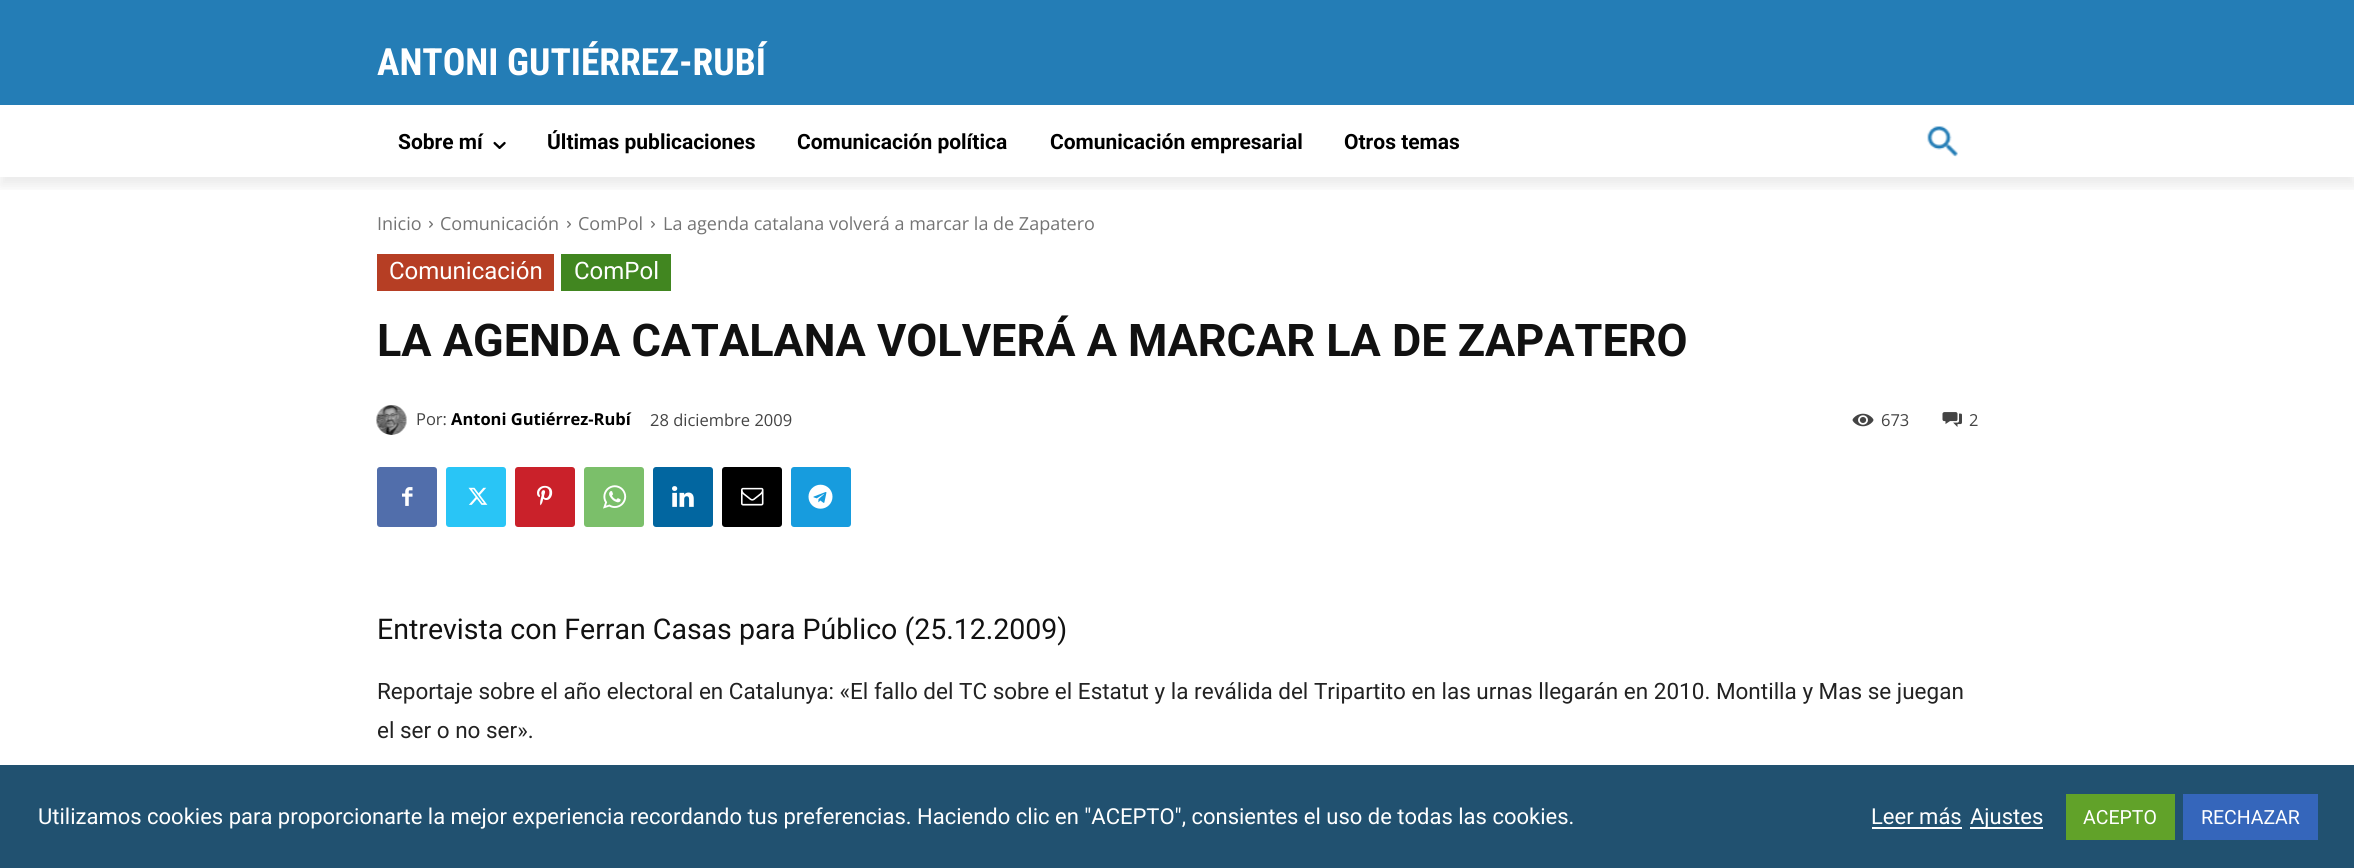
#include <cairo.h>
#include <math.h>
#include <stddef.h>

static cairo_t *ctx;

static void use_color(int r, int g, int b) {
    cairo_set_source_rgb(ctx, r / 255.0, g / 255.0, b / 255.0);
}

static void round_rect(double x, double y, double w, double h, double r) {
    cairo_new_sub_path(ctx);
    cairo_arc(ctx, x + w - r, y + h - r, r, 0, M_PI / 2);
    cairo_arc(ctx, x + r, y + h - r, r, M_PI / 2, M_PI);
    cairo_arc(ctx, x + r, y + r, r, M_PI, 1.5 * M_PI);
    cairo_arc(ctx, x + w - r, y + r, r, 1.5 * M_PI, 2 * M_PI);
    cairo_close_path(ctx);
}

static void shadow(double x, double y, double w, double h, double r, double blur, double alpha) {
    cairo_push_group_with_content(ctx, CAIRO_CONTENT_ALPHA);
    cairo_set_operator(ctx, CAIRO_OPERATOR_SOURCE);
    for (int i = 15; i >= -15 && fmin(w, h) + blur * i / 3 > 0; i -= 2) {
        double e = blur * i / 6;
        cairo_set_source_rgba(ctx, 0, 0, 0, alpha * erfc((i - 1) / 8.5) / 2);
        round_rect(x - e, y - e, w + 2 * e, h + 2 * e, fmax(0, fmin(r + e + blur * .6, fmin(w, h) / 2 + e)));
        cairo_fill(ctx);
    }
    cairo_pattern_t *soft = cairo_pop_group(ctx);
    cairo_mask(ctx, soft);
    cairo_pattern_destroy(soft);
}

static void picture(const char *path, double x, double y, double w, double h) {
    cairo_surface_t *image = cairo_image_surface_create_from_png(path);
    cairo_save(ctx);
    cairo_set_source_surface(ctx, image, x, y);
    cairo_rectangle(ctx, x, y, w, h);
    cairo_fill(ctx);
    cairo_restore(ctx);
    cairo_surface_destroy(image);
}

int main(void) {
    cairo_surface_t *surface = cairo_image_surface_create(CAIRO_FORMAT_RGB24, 2354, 868);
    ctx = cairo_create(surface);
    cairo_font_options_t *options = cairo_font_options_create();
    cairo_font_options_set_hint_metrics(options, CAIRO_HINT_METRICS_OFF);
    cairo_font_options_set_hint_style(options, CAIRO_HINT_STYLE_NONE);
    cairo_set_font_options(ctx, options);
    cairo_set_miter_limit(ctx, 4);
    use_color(255, 255, 255);
    cairo_paint(ctx);
    use_color(36, 125, 182);
    cairo_rectangle(ctx, 0, 0, 2354, 105);
    cairo_fill(ctx);
    cairo_save(ctx);
    cairo_rectangle(ctx, 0, 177, 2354, 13);
    cairo_clip(ctx);
    use_color(0, 0, 0);
    shadow(0, 9, 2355, 177, 0, 6, 0.08);
    cairo_restore(ctx);
    cairo_select_font_face(ctx, "Roboto Condensed", CAIRO_FONT_SLANT_NORMAL, CAIRO_FONT_WEIGHT_BOLD);
    cairo_set_font_size(ctx, 37.5);
    use_color(255, 255, 255);
    cairo_move_to(ctx, 377, 75);
    cairo_show_text(ctx, "ANTONI GUTIÉRREZ-RUBÍ");
    cairo_select_font_face(ctx, "Roboto", CAIRO_FONT_SLANT_NORMAL, CAIRO_FONT_WEIGHT_BOLD);
    cairo_set_font_size(ctx, 21);
    use_color(0, 0, 0);
    cairo_move_to(ctx, 398, 149);
    cairo_show_text(ctx, "Sobre mí");
    picture("img1.png", 493, 141, 13, 8);
    cairo_move_to(ctx, 547, 149);
    cairo_show_text(ctx, "Últimas publicaciones");
    cairo_move_to(ctx, 797, 149);
    cairo_show_text(ctx, "Comunicación política");
    cairo_move_to(ctx, 1050, 149);
    cairo_show_text(ctx, "Comunicación empresarial");
    cairo_move_to(ctx, 1344, 149);
    cairo_show_text(ctx, "Otros temas");
    picture("img2.png", 1927, 126, 31, 31);
    cairo_select_font_face(ctx, "Open Sans", CAIRO_FONT_SLANT_NORMAL, CAIRO_FONT_WEIGHT_NORMAL);
    cairo_set_font_size(ctx, 18);
    use_color(116, 116, 116);
    cairo_move_to(ctx, 377, 230);
    cairo_show_text(ctx, "Inicio");
    picture("img3.png", 429, 220, 4, 8);
    cairo_move_to(ctx, 440, 230);
    cairo_show_text(ctx, "Comunicación");
    picture("img3.png", 567, 220, 4, 8);
    cairo_move_to(ctx, 578, 230);
    cairo_show_text(ctx, "ComPol");
    picture("img3.png", 651, 220, 4, 8);
    cairo_move_to(ctx, 663, 230);
    cairo_show_text(ctx, "La agenda catalana volverá a marcar la de Zapatero");
    use_color(182, 62, 36);
    cairo_rectangle(ctx, 377, 254, 177, 37);
    cairo_fill(ctx);
    cairo_select_font_face(ctx, "Roboto", CAIRO_FONT_SLANT_NORMAL, CAIRO_FONT_WEIGHT_NORMAL);
    cairo_set_font_size(ctx, 24);
    use_color(255, 255, 255);
    cairo_move_to(ctx, 389, 279);
    cairo_show_text(ctx, "Comunicación");
    use_color(65, 134, 32);
    cairo_rectangle(ctx, 561, 254, 110, 37);
    cairo_fill(ctx);
    use_color(255, 255, 255);
    cairo_move_to(ctx, 574, 279);
    cairo_show_text(ctx, "ComPol");
    cairo_select_font_face(ctx, "Roboto", CAIRO_FONT_SLANT_NORMAL, CAIRO_FONT_WEIGHT_BOLD);
    cairo_set_font_size(ctx, 45);
    use_color(17, 17, 17);
    cairo_move_to(ctx, 377, 356);
    cairo_show_text(ctx, "LA AGENDA CATALANA VOLVERÁ A MARCAR LA DE ZAPATERO");
    picture("img4.png", 376, 405, 31, 30);
    cairo_select_font_face(ctx, "Open Sans", CAIRO_FONT_SLANT_NORMAL, CAIRO_FONT_WEIGHT_NORMAL);
    cairo_set_font_size(ctx, 16.5);
    use_color(68, 68, 68);
    cairo_move_to(ctx, 416, 425);
    cairo_show_text(ctx, "Por:");
    cairo_select_font_face(ctx, "Open Sans", CAIRO_FONT_SLANT_NORMAL, CAIRO_FONT_WEIGHT_BOLD);
    use_color(0, 0, 0);
    cairo_move_to(ctx, 451, 425);
    cairo_show_text(ctx, "Antoni Gutiérrez-Rubí");
    cairo_select_font_face(ctx, "Open Sans", CAIRO_FONT_SLANT_NORMAL, CAIRO_FONT_WEIGHT_NORMAL);
    use_color(68, 68, 68);
    cairo_move_to(ctx, 650, 426);
    cairo_show_text(ctx, "28 diciembre 2009");
    picture("img5.png", 1852, 413, 22, 14);
    cairo_move_to(ctx, 1881, 426);
    cairo_show_text(ctx, "673");
    picture("img6.png", 1942, 412, 20, 15);
    cairo_move_to(ctx, 1969, 426);
    cairo_show_text(ctx, "2");
    use_color(81, 110, 171);
    round_rect(377, 467, 60, 60, 3);
    cairo_fill(ctx);
    picture("img7.png", 402, 487, 11, 19);
    use_color(41, 197, 246);
    round_rect(446, 467, 60, 60, 3);
    cairo_fill(ctx);
    picture("img8.png", 468, 487, 20, 18);
    use_color(202, 33, 42);
    round_rect(515, 467, 60, 60, 3);
    cairo_fill(ctx);
    picture("img9.png", 537, 485, 16, 21);
    use_color(123, 191, 106);
    round_rect(584, 467, 60, 60, 3);
    cairo_fill(ctx);
    picture("img10.png", 603, 485, 24, 24);
    use_color(2, 102, 160);
    round_rect(653, 467, 60, 60, 3);
    cairo_fill(ctx);
    picture("img11.png", 672, 486, 22, 21);
    use_color(0, 0, 0);
    round_rect(722, 467, 60, 60, 3);
    cairo_fill(ctx);
    picture("img12.png", 741, 487, 23, 19);
    use_color(23, 156, 222);
    round_rect(791, 467, 60, 60, 3);
    cairo_fill(ctx);
    picture("img13.png", 808, 484, 25, 25);
    cairo_select_font_face(ctx, "Roboto", CAIRO_FONT_SLANT_NORMAL, CAIRO_FONT_WEIGHT_NORMAL);
    cairo_set_font_size(ctx, 28.5);
    use_color(17, 17, 17);
    cairo_move_to(ctx, 377, 639);
    cairo_show_text(ctx, "Entrevista con Ferran Casas para Público (25.12.2009)");
    cairo_set_font_size(ctx, 22.5);
    use_color(34, 34, 34);
    cairo_move_to(ctx, 377, 699);
    cairo_show_text(ctx, "Reportaje sobre el año electoral en Catalunya: «El fallo del TC sobre el Estatut y la reválida del Tripartito en las urnas llegarán en 2010. Montilla y Mas se juegan");
    cairo_move_to(ctx, 377, 738);
    cairo_show_text(ctx, "el ser o no ser».");
    use_color(33, 81, 112);
    cairo_rectangle(ctx, 0, 765, 2354, 103);
    cairo_fill(ctx);
    cairo_set_font_size(ctx, 22);
    use_color(255, 255, 255);
    cairo_move_to(ctx, 38, 824);
    cairo_show_text(ctx, "Utilizamos cookies para proporcionarte la mejor experiencia recordando tus preferencias. Haciendo clic en \"ACEPTO\", consientes el uso de todas las cookies.");
    cairo_move_to(ctx, 1871, 824);
    cairo_show_text(ctx, "Leer más");
    cairo_rectangle(ctx, 1872, 827, 90, 2);
    cairo_fill(ctx);
    cairo_rectangle(ctx, 1970, 827, 73, 2);
    cairo_fill(ctx);
    cairo_move_to(ctx, 1970, 824);
    cairo_show_text(ctx, "Ajustes");
    use_color(97, 162, 41);
    cairo_rectangle(ctx, 2066, 794, 109, 46);
    cairo_fill(ctx);
    cairo_set_font_size(ctx, 19.5);
    use_color(255, 255, 255);
    cairo_move_to(ctx, 2083, 824);
    cairo_show_text(ctx, "ACEPTO");
    use_color(53, 102, 187);
    cairo_rectangle(ctx, 2183, 794, 135, 46);
    cairo_fill(ctx);
    use_color(255, 255, 255);
    cairo_move_to(ctx, 2201, 824);
    cairo_show_text(ctx, "RECHAZAR");
    cairo_surface_write_to_png(surface, "result.png");
    cairo_font_options_destroy(options);
    cairo_destroy(ctx);
    cairo_surface_destroy(surface);
    return 0;
}
